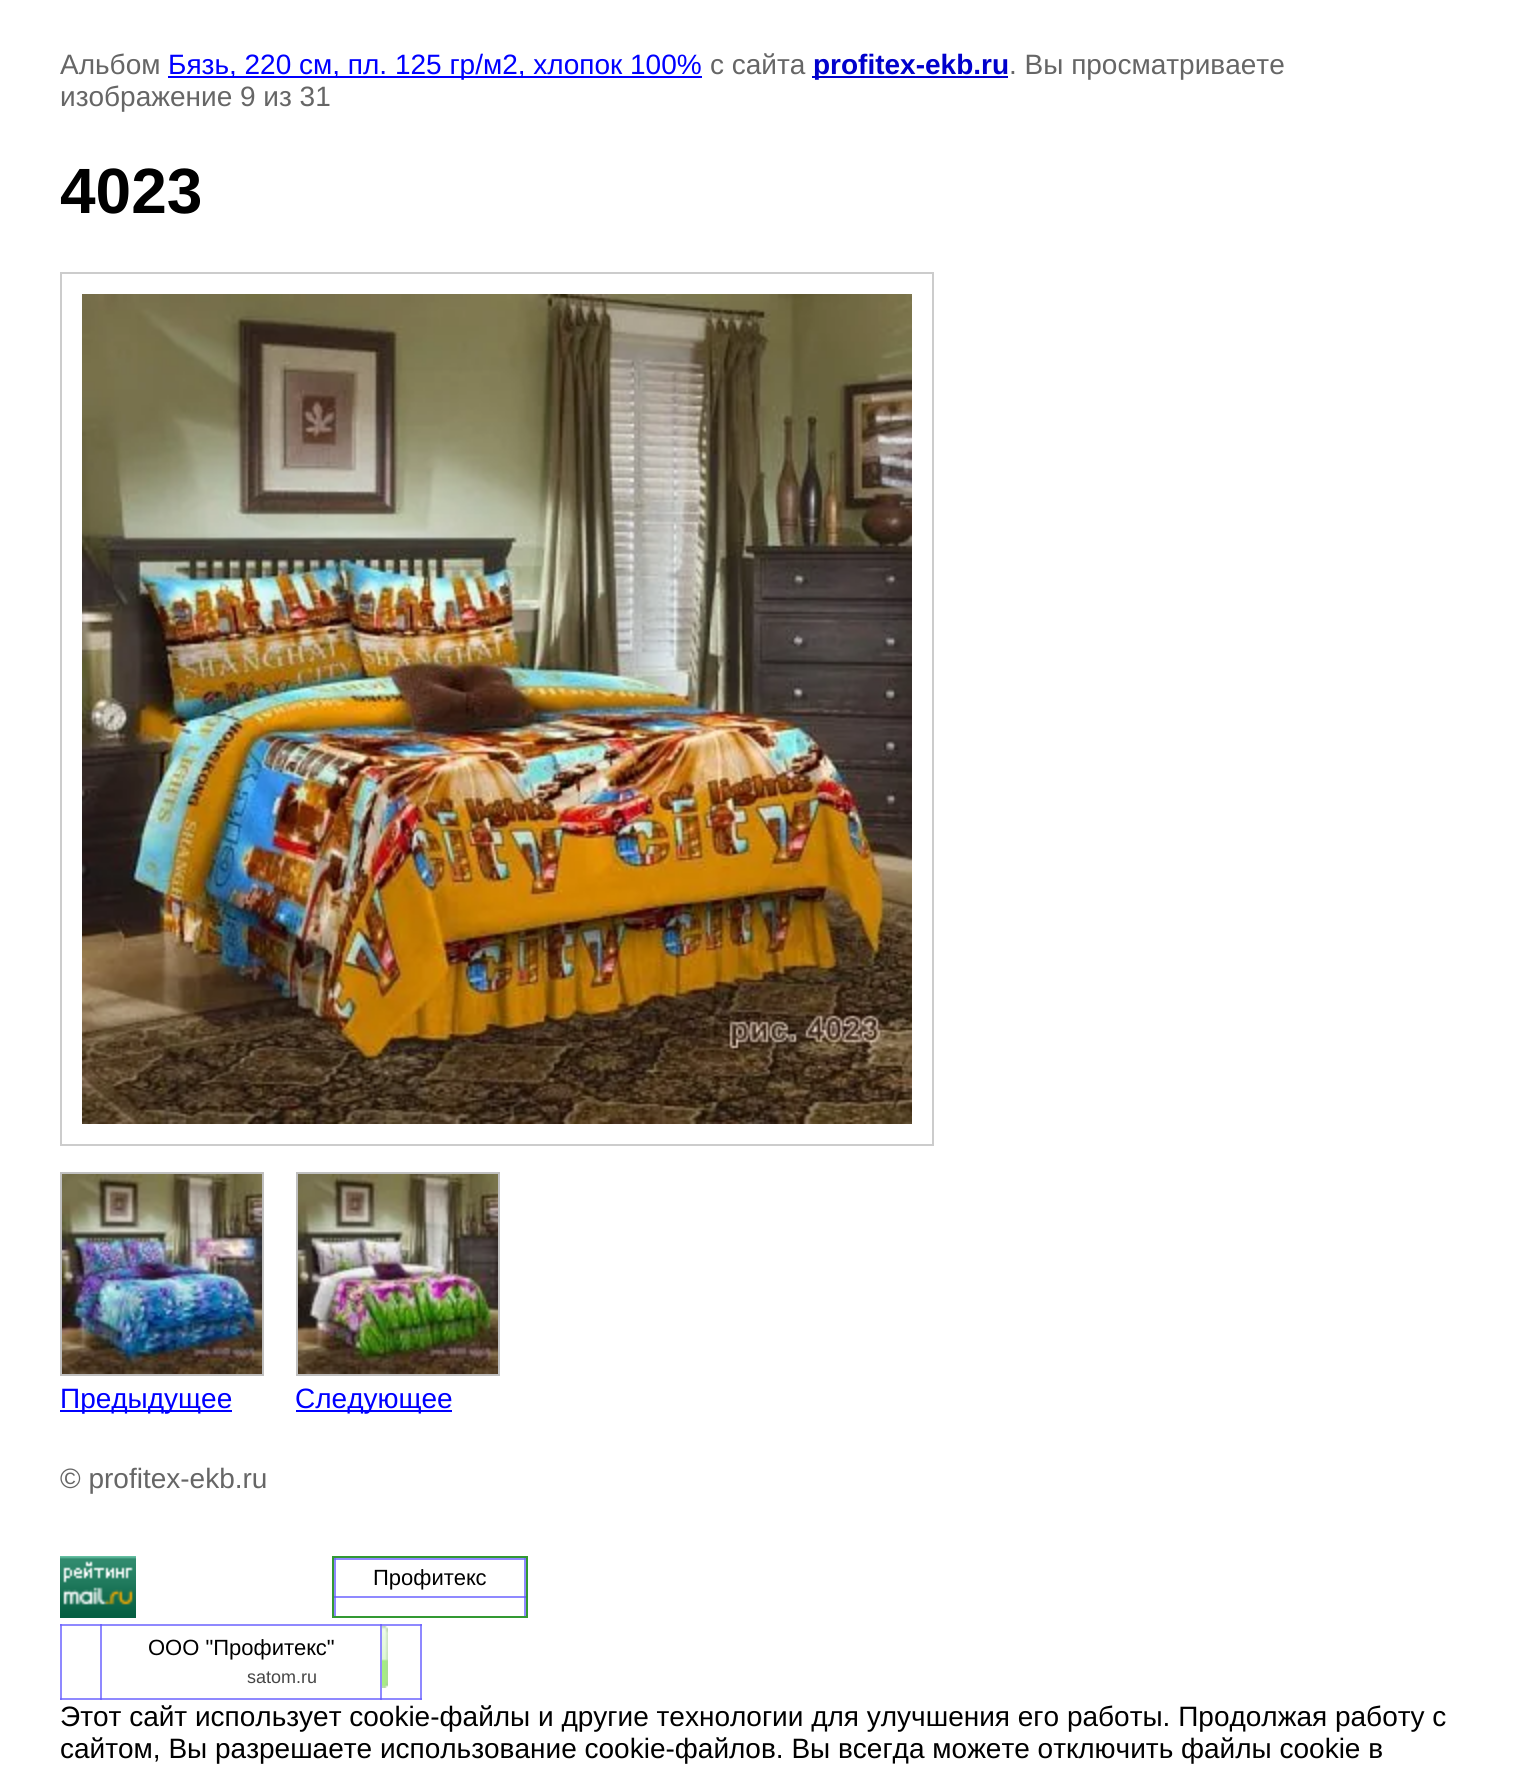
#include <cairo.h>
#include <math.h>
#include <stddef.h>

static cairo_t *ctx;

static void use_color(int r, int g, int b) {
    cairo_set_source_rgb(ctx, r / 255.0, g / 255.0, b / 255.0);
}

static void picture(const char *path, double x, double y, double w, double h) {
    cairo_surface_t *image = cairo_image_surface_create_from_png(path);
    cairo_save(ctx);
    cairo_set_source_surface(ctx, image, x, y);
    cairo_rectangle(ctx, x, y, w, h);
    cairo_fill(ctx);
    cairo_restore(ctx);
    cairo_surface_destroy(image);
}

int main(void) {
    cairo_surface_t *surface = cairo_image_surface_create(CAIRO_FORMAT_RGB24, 1521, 1767);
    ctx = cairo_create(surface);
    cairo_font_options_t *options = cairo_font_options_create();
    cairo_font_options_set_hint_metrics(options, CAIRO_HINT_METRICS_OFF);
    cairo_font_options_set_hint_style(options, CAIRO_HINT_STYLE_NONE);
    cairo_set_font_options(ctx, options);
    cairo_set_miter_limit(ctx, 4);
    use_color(255, 255, 255);
    cairo_paint(ctx);
    use_color(143, 137, 255);
    cairo_rectangle(ctx, 334, 1596, 192, 2);
    cairo_fill(ctx);
    cairo_rectangle(ctx, 334, 1558, 2, 58);
    cairo_fill(ctx);
    use_color(110, 102, 255);
    cairo_rectangle(ctx, 334, 1596, 2, 2);
    cairo_fill(ctx);
    use_color(143, 137, 255);
    cairo_rectangle(ctx, 524, 1558, 2, 58);
    cairo_fill(ctx);
    use_color(110, 102, 255);
    cairo_rectangle(ctx, 524, 1596, 2, 2);
    cairo_fill(ctx);
    use_color(143, 137, 255);
    cairo_rectangle(ctx, 100, 1624, 2, 76);
    cairo_fill(ctx);
    cairo_rectangle(ctx, 380, 1624, 2, 76);
    cairo_fill(ctx);
    cairo_rectangle(ctx, 60, 1624, 2, 76);
    cairo_fill(ctx);
    cairo_rectangle(ctx, 60, 1698, 362, 2);
    cairo_fill(ctx);
    use_color(110, 102, 255);
    cairo_rectangle(ctx, 100, 1698, 2, 2);
    cairo_fill(ctx);
    cairo_rectangle(ctx, 380, 1698, 2, 2);
    cairo_fill(ctx);
    use_color(115, 107, 255);
    cairo_rectangle(ctx, 60, 1698, 2, 2);
    cairo_fill(ctx);
    use_color(143, 137, 255);
    cairo_rectangle(ctx, 420, 1624, 2, 76);
    cairo_fill(ctx);
    use_color(115, 107, 255);
    cairo_rectangle(ctx, 420, 1698, 2, 2);
    cairo_fill(ctx);
    cairo_select_font_face(ctx, "Liberation Sans", CAIRO_FONT_SLANT_NORMAL, CAIRO_FONT_WEIGHT_NORMAL);
    cairo_set_font_size(ctx, 28);
    use_color(102, 102, 102);
    cairo_move_to(ctx, 60, 74);
    cairo_show_text(ctx, "Альбом");
    use_color(0, 0, 255);
    cairo_rectangle(ctx, 168, 76, 534, 2);
    cairo_fill(ctx);
    cairo_move_to(ctx, 168, 74);
    cairo_show_text(ctx, "Бязь, 220 см, пл. 125 гр/м2, хлопок 100%");
    use_color(102, 102, 102);
    cairo_move_to(ctx, 710, 74);
    cairo_show_text(ctx, "с сайта");
    use_color(0, 0, 204);
    cairo_rectangle(ctx, 812, 76, 196, 2);
    cairo_fill(ctx);
    cairo_select_font_face(ctx, "Liberation Sans", CAIRO_FONT_SLANT_NORMAL, CAIRO_FONT_WEIGHT_BOLD);
    cairo_move_to(ctx, 813, 74);
    cairo_show_text(ctx, "profitex-ekb.ru");
    cairo_select_font_face(ctx, "Liberation Sans", CAIRO_FONT_SLANT_NORMAL, CAIRO_FONT_WEIGHT_NORMAL);
    use_color(102, 102, 102);
    cairo_move_to(ctx, 1009, 74);
    cairo_show_text(ctx, ". Вы просматриваете");
    cairo_move_to(ctx, 60, 106);
    cairo_show_text(ctx, "изображение 9 из 31");
    cairo_select_font_face(ctx, "Liberation Sans", CAIRO_FONT_SLANT_NORMAL, CAIRO_FONT_WEIGHT_BOLD);
    cairo_set_font_size(ctx, 64);
    use_color(0, 0, 0);
    cairo_move_to(ctx, 60, 213);
    cairo_show_text(ctx, "4023");
    cairo_rectangle(ctx, 61, 273, 872, 872);
    use_color(204, 204, 204);
    cairo_stroke(ctx);
    picture("img1.png", 82, 294, 830, 830);
    cairo_rectangle(ctx, 61, 1173, 202, 202);
    use_color(192, 192, 192);
    cairo_stroke(ctx);
    picture("img2.png", 62, 1174, 200, 200);
    use_color(0, 0, 255);
    cairo_rectangle(ctx, 60, 1410, 172, 2);
    cairo_fill(ctx);
    cairo_select_font_face(ctx, "Liberation Sans", CAIRO_FONT_SLANT_NORMAL, CAIRO_FONT_WEIGHT_NORMAL);
    cairo_set_font_size(ctx, 28);
    cairo_move_to(ctx, 60, 1408);
    cairo_show_text(ctx, "Предыдущее");
    cairo_rectangle(ctx, 297, 1173, 202, 202);
    use_color(192, 192, 192);
    cairo_stroke(ctx);
    picture("img3.png", 298, 1174, 200, 200);
    use_color(0, 0, 255);
    cairo_rectangle(ctx, 296, 1410, 156, 2);
    cairo_fill(ctx);
    cairo_move_to(ctx, 295, 1408);
    cairo_show_text(ctx, "Следующее");
    use_color(102, 102, 102);
    cairo_move_to(ctx, 60, 1488);
    cairo_show_text(ctx, "© profitex-ekb.ru");
    picture("img4.png", 60, 1556, 76, 62);
    cairo_rectangle(ctx, 333, 1557, 194, 60);
    use_color(51, 153, 51);
    cairo_stroke(ctx);
    use_color(143, 137, 255);
    cairo_rectangle(ctx, 334, 1558, 192, 2);
    cairo_fill(ctx);
    use_color(115, 107, 255);
    cairo_rectangle(ctx, 334, 1558, 2, 2);
    cairo_fill(ctx);
    cairo_rectangle(ctx, 524, 1558, 2, 2);
    cairo_fill(ctx);
    cairo_set_font_size(ctx, 22);
    use_color(0, 0, 0);
    cairo_move_to(ctx, 373, 1585);
    cairo_show_text(ctx, "Профитекс");
    use_color(143, 137, 255);
    cairo_rectangle(ctx, 60, 1624, 362, 2);
    cairo_fill(ctx);
    use_color(110, 102, 255);
    cairo_rectangle(ctx, 100, 1624, 2, 2);
    cairo_fill(ctx);
    cairo_rectangle(ctx, 380, 1624, 2, 2);
    cairo_fill(ctx);
    use_color(115, 107, 255);
    cairo_rectangle(ctx, 60, 1624, 2, 2);
    cairo_fill(ctx);
    cairo_rectangle(ctx, 420, 1624, 2, 2);
    cairo_fill(ctx);
    use_color(0, 0, 0);
    cairo_move_to(ctx, 148, 1655);
    cairo_show_text(ctx, "ООО \"Профитекс\"");
    cairo_set_font_size(ctx, 18);
    use_color(70, 70, 70);
    cairo_move_to(ctx, 247, 1683);
    cairo_show_text(ctx, "satom.ru");
    picture("img5.png", 382, 1626, 6, 62);
    cairo_set_font_size(ctx, 28);
    use_color(0, 0, 0);
    cairo_move_to(ctx, 60, 1726);
    cairo_show_text(ctx, "Этот сайт использует cookie-файлы и другие технологии для улучшения его работы. Продолжая работу с");
    cairo_move_to(ctx, 60, 1758);
    cairo_show_text(ctx, "сайтом, Вы разрешаете использование cookie-файлов. Вы всегда можете отключить файлы cookie в");
    cairo_surface_write_to_png(surface, "result.png");
    cairo_font_options_destroy(options);
    cairo_destroy(ctx);
    cairo_surface_destroy(surface);
    return 0;
}
